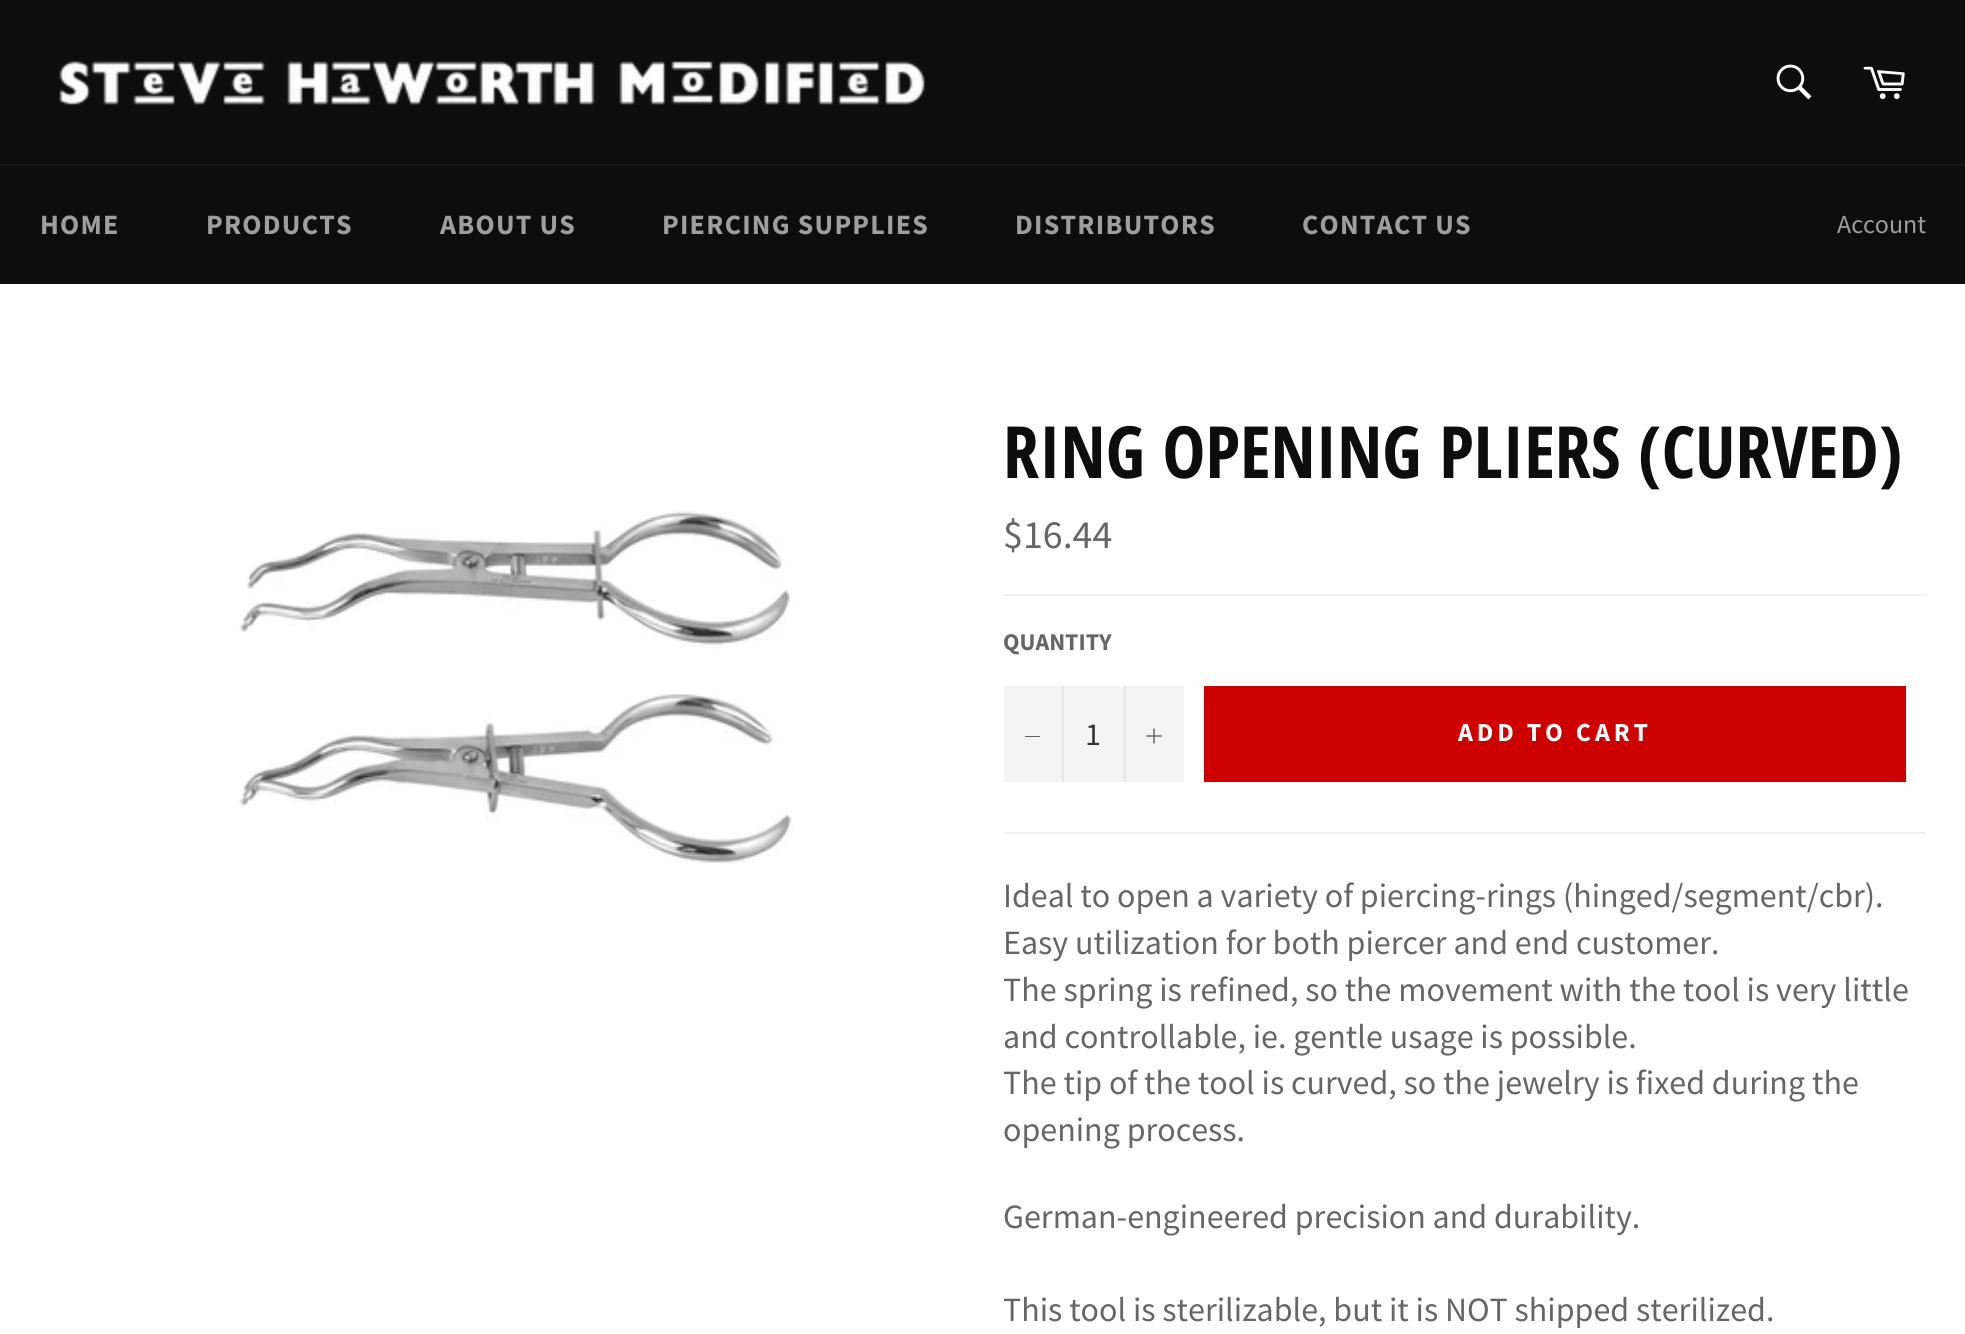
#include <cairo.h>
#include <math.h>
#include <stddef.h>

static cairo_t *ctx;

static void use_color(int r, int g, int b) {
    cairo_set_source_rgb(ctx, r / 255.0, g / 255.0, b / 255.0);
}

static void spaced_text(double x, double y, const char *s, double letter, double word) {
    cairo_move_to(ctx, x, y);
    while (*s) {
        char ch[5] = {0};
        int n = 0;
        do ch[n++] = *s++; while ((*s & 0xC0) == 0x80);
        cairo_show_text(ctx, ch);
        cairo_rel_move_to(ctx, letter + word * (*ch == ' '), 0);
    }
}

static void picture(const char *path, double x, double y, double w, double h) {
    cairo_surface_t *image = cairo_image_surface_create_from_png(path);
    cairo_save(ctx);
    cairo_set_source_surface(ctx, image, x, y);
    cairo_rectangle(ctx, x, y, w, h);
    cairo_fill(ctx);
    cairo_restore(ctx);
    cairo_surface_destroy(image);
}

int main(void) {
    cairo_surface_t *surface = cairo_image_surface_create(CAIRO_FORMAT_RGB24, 1965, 1334);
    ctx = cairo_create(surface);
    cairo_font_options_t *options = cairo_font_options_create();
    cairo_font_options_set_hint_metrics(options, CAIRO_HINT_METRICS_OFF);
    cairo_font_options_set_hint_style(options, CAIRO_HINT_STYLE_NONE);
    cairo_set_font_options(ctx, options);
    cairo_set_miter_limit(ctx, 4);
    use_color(13, 13, 13);
    cairo_paint(ctx);
    picture("img1.png", 59, 61, 866, 44);
    picture("img2.png", 1776, 64, 36, 36);
    picture("img3.png", 1863, 66, 42, 33);
    use_color(26, 26, 26);
    cairo_rectangle(ctx, 0, 164, 1965, 2);
    cairo_fill(ctx);
    cairo_select_font_face(ctx, "Source Sans Pro", CAIRO_FONT_SLANT_NORMAL, CAIRO_FONT_WEIGHT_BOLD);
    cairo_set_font_size(ctx, 28);
    use_color(158, 158, 158);
    spaced_text(40, 234, "HOME", 1.25, 0);
    spaced_text(206, 234, "PRODUCTS", 1.25, 0);
    spaced_text(440, 234, "ABOUT US", 1.25, 0);
    spaced_text(662, 234, "PIERCING SUPPLIES", 1.25, 0);
    spaced_text(1015, 234, "DISTRIBUTORS", 1.25, 0);
    spaced_text(1302, 234, "CONTACT US", 1.25, 0);
    cairo_select_font_face(ctx, "Source Sans Pro", CAIRO_FONT_SLANT_NORMAL, CAIRO_FONT_WEIGHT_NORMAL);
    cairo_set_font_size(ctx, 26);
    cairo_move_to(ctx, 1837, 233);
    cairo_show_text(ctx, "Account");
    use_color(255, 255, 255);
    cairo_rectangle(ctx, 0, 284, 1965, 1050);
    cairo_fill(ctx);
    picture("img4.png", 239, 511, 554, 353);
    cairo_select_font_face(ctx, "Open Sans Condensed", CAIRO_FONT_SLANT_NORMAL, CAIRO_FONT_WEIGHT_BOLD);
    cairo_set_font_size(ctx, 72);
    use_color(13, 13, 13);
    cairo_move_to(ctx, 1003, 478);
    cairo_show_text(ctx, "RING OPENING PLIERS (CURVED)");
    cairo_select_font_face(ctx, "Source Sans Pro", CAIRO_FONT_SLANT_NORMAL, CAIRO_FONT_WEIGHT_NORMAL);
    cairo_set_font_size(ctx, 40);
    use_color(102, 102, 102);
    cairo_move_to(ctx, 1003, 548);
    cairo_show_text(ctx, "$16.44");
    use_color(240, 240, 240);
    cairo_rectangle(ctx, 1004, 594, 922, 2);
    cairo_fill(ctx);
    cairo_select_font_face(ctx, "Source Sans Pro", CAIRO_FONT_SLANT_NORMAL, CAIRO_FONT_WEIGHT_BOLD);
    cairo_set_font_size(ctx, 24);
    use_color(102, 102, 102);
    cairo_move_to(ctx, 1003, 650);
    cairo_show_text(ctx, "QUANTITY");
    use_color(244, 244, 244);
    cairo_rectangle(ctx, 1004, 686, 180, 96);
    cairo_fill(ctx);
    use_color(231, 231, 231);
    cairo_rectangle(ctx, 1062, 686, 2, 96);
    cairo_fill(ctx);
    use_color(102, 102, 102);
    cairo_rectangle(ctx, 1025, 736, 15, 1);
    cairo_fill(ctx);
    cairo_select_font_face(ctx, "Source Sans Pro", CAIRO_FONT_SLANT_NORMAL, CAIRO_FONT_WEIGHT_NORMAL);
    cairo_set_font_size(ctx, 32);
    use_color(51, 51, 51);
    cairo_move_to(ctx, 1085, 745);
    cairo_show_text(ctx, "1");
    use_color(231, 231, 231);
    cairo_rectangle(ctx, 1124, 686, 2, 96);
    cairo_fill(ctx);
    picture("img5.png", 1146, 728, 16, 16);
    use_color(206, 1, 1);
    cairo_rectangle(ctx, 1204, 686, 702, 96);
    cairo_fill(ctx);
    cairo_select_font_face(ctx, "Source Sans Pro", CAIRO_FONT_SLANT_NORMAL, CAIRO_FONT_WEIGHT_BOLD);
    cairo_set_font_size(ctx, 26);
    use_color(255, 255, 255);
    spaced_text(1458, 741, "ADD TO CART", 3.9, 0);
    use_color(240, 240, 240);
    cairo_rectangle(ctx, 1004, 832, 922, 2);
    cairo_fill(ctx);
    cairo_select_font_face(ctx, "Source Sans Pro", CAIRO_FONT_SLANT_NORMAL, CAIRO_FONT_WEIGHT_NORMAL);
    cairo_set_font_size(ctx, 34);
    use_color(102, 102, 102);
    cairo_move_to(ctx, 1003, 907);
    cairo_show_text(ctx, "Ideal to open a variety of piercing-rings (hinged/segment/cbr).");
    cairo_move_to(ctx, 1003, 954);
    cairo_show_text(ctx, "Easy utilization for both piercer and end customer.");
    cairo_move_to(ctx, 1003, 1001);
    cairo_show_text(ctx, "The spring is refined, so the movement with the tool is very little");
    cairo_move_to(ctx, 1003, 1048);
    cairo_show_text(ctx, "and controllable, ie. gentle usage is possible.");
    cairo_move_to(ctx, 1003, 1094);
    cairo_show_text(ctx, "The tip of the tool is curved, so the jewelry is fixed during the");
    cairo_move_to(ctx, 1003, 1141);
    cairo_show_text(ctx, "opening process.");
    cairo_move_to(ctx, 1003, 1228);
    cairo_show_text(ctx, "German-engineered precision and durability.");
    cairo_move_to(ctx, 1003, 1321);
    cairo_show_text(ctx, "This tool is sterilizable, but it is NOT shipped sterilized.");
    cairo_surface_write_to_png(surface, "result.png");
    cairo_font_options_destroy(options);
    cairo_destroy(ctx);
    cairo_surface_destroy(surface);
    return 0;
}
